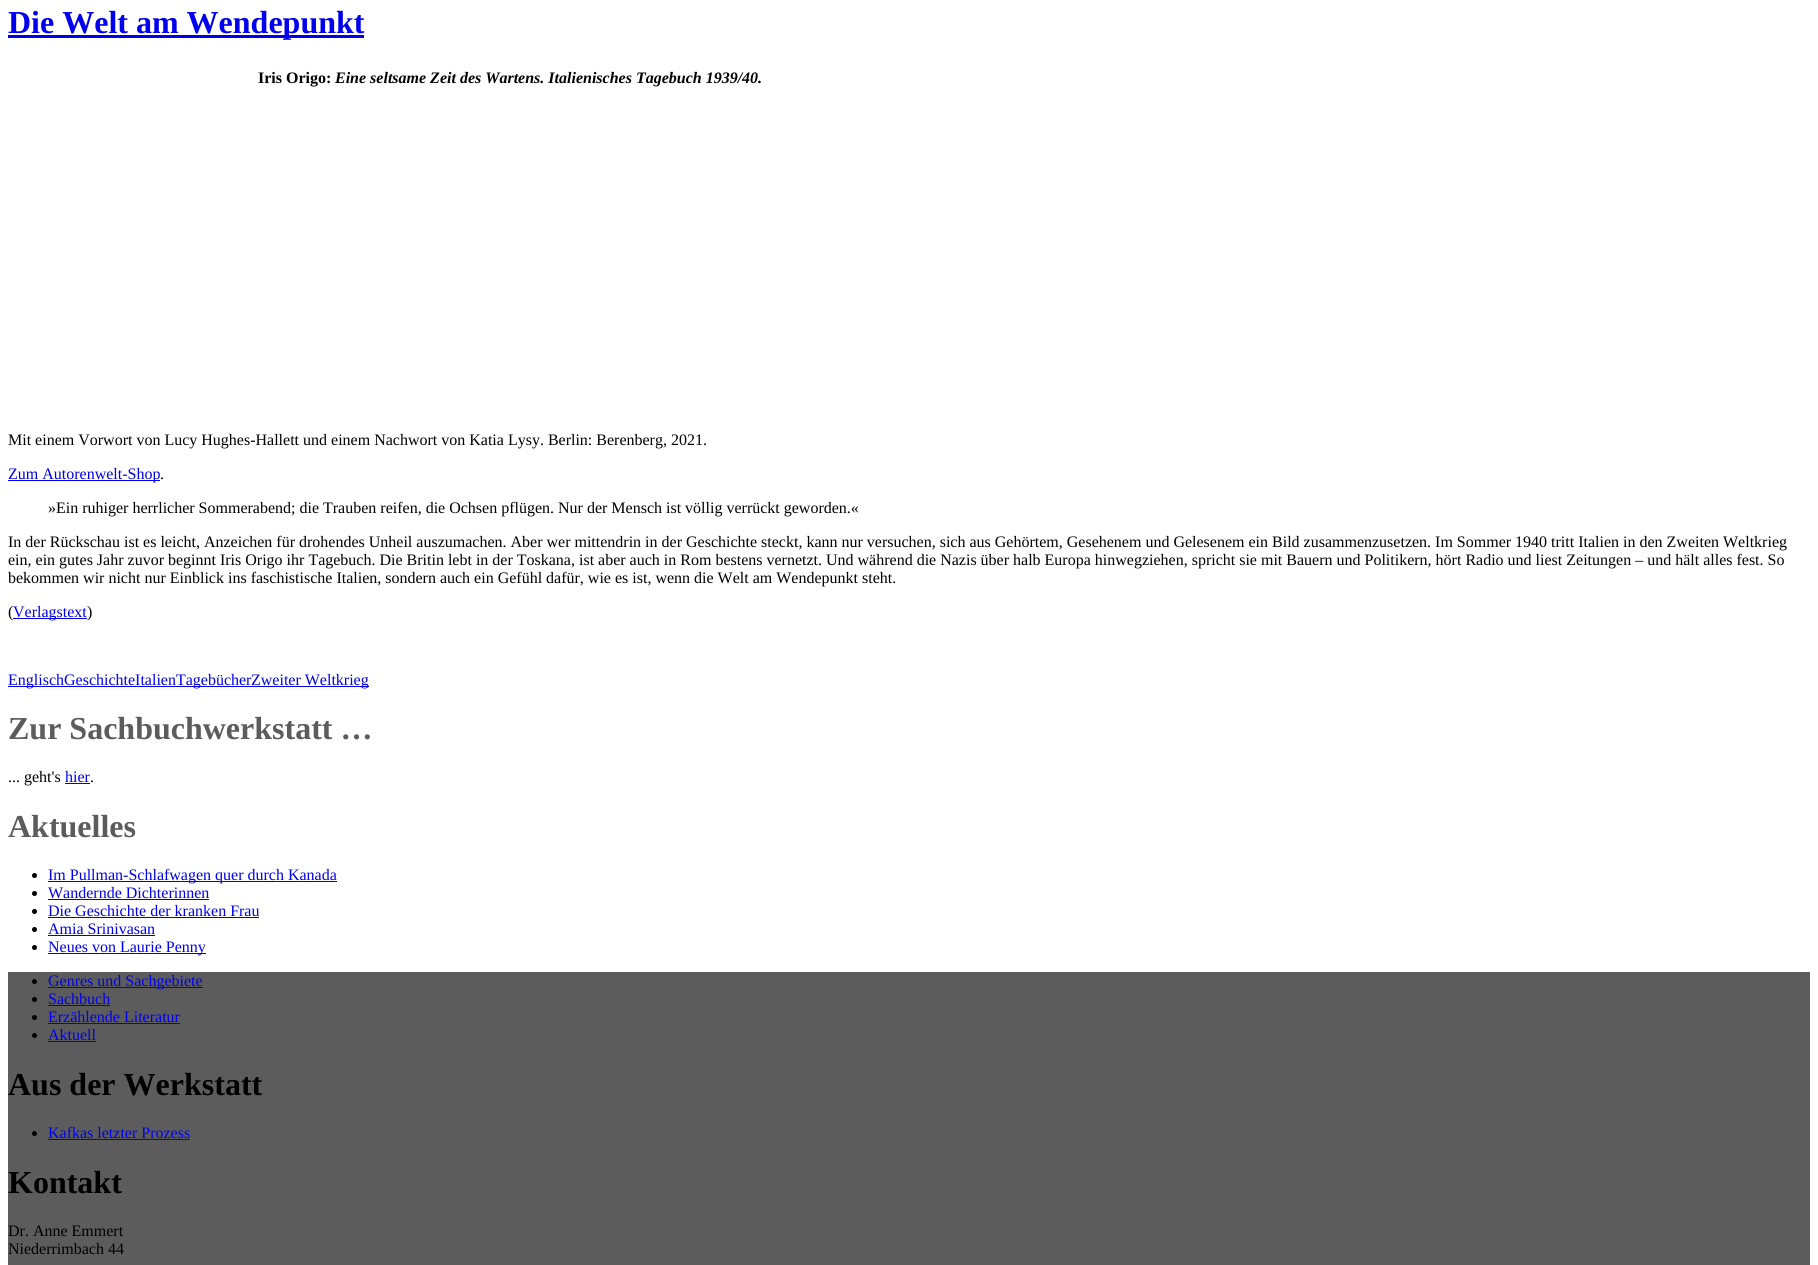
#include <cairo.h>
#include <math.h>
#include <stddef.h>

static cairo_t *ctx;

static void use_color(int r, int g, int b) {
    cairo_set_source_rgb(ctx, r / 255.0, g / 255.0, b / 255.0);
}

int main(void) {
    cairo_surface_t *surface = cairo_image_surface_create(CAIRO_FORMAT_RGB24, 1818, 1265);
    ctx = cairo_create(surface);
    cairo_font_options_t *options = cairo_font_options_create();
    cairo_font_options_set_hint_metrics(options, CAIRO_HINT_METRICS_OFF);
    cairo_font_options_set_hint_style(options, CAIRO_HINT_STYLE_NONE);
    cairo_set_font_options(ctx, options);
    cairo_set_miter_limit(ctx, 4);
    use_color(255, 255, 255);
    cairo_paint(ctx);
    use_color(0, 0, 238);
    cairo_rectangle(ctx, 8, 35, 356, 3);
    cairo_fill(ctx);
    cairo_select_font_face(ctx, "Liberation Serif", CAIRO_FONT_SLANT_NORMAL, CAIRO_FONT_WEIGHT_BOLD);
    cairo_set_font_size(ctx, 32);
    cairo_move_to(ctx, 8, 33);
    cairo_show_text(ctx, "Die Welt am Wendepunkt");
    cairo_set_font_size(ctx, 16);
    use_color(0, 0, 0);
    cairo_move_to(ctx, 258, 83);
    cairo_show_text(ctx, "Iris Origo:");
    cairo_select_font_face(ctx, "Liberation Serif", CAIRO_FONT_SLANT_ITALIC, CAIRO_FONT_WEIGHT_BOLD);
    cairo_move_to(ctx, 335, 83);
    cairo_show_text(ctx, "Eine seltsame Zeit des Wartens. Italienisches Tagebuch 1939/40.");
    cairo_select_font_face(ctx, "Liberation Serif", CAIRO_FONT_SLANT_NORMAL, CAIRO_FONT_WEIGHT_NORMAL);
    cairo_move_to(ctx, 8, 445);
    cairo_show_text(ctx, "Mit einem Vorwort von Lucy Hughes-Hallett und einem Nachwort von Katia Lysy. Berlin: Berenberg, 2021.");
    use_color(0, 0, 238);
    cairo_rectangle(ctx, 8, 480, 152, 1);
    cairo_fill(ctx);
    cairo_move_to(ctx, 8, 479);
    cairo_show_text(ctx, "Zum Autorenwelt-Shop");
    use_color(0, 0, 0);
    cairo_move_to(ctx, 160, 479);
    cairo_show_text(ctx, ".");
    cairo_move_to(ctx, 48, 513);
    cairo_show_text(ctx, "»Ein ruhiger herrlicher Sommerabend; die Trauben reifen, die Ochsen pflügen. Nur der Mensch ist völlig verrückt geworden.«");
    cairo_move_to(ctx, 8, 547);
    cairo_show_text(ctx, "In der Rückschau ist es leicht, Anzeichen für drohendes Unheil auszumachen. Aber wer mittendrin in der Geschichte steckt, kann nur versuchen, sich aus Gehörtem, Gesehenem und Gelesenem ein Bild zusammenzusetzen. Im Sommer 1940 tritt Italien in den Zweiten Weltkrieg");
    cairo_move_to(ctx, 8, 565);
    cairo_show_text(ctx, "ein, ein gutes Jahr zuvor beginnt Iris Origo ihr Tagebuch. Die Britin lebt in der Toskana, ist aber auch in Rom bestens vernetzt. Und während die Nazis über halb Europa hinwegziehen, spricht sie mit Bauern und Politikern, hört Radio und liest Zeitungen – und hält alles fest. So");
    cairo_move_to(ctx, 8, 583);
    cairo_show_text(ctx, "bekommen wir nicht nur Einblick ins faschistische Italien, sondern auch ein Gefühl dafür, wie es ist, wenn die Welt am Wendepunkt steht.");
    cairo_move_to(ctx, 8, 617);
    cairo_show_text(ctx, "(");
    use_color(0, 0, 238);
    cairo_rectangle(ctx, 13, 618, 74, 1);
    cairo_fill(ctx);
    cairo_move_to(ctx, 13, 617);
    cairo_show_text(ctx, "Verlagstext");
    use_color(0, 0, 0);
    cairo_move_to(ctx, 87, 617);
    cairo_show_text(ctx, ")");
    use_color(0, 0, 238);
    cairo_rectangle(ctx, 8, 686, 243, 1);
    cairo_fill(ctx);
    cairo_move_to(ctx, 8, 685);
    cairo_show_text(ctx, "EnglischGeschichteItalienTagebücher");
    cairo_rectangle(ctx, 251, 686, 118, 1);
    cairo_fill(ctx);
    cairo_move_to(ctx, 251, 685);
    cairo_show_text(ctx, "Zweiter Weltkrieg");
    cairo_select_font_face(ctx, "Liberation Serif", CAIRO_FONT_SLANT_NORMAL, CAIRO_FONT_WEIGHT_BOLD);
    cairo_set_font_size(ctx, 32);
    use_color(92, 92, 92);
    cairo_move_to(ctx, 8, 739);
    cairo_show_text(ctx, "Zur Sachbuchwerkstatt …");
    cairo_select_font_face(ctx, "Liberation Serif", CAIRO_FONT_SLANT_NORMAL, CAIRO_FONT_WEIGHT_NORMAL);
    cairo_set_font_size(ctx, 16);
    use_color(0, 0, 0);
    cairo_move_to(ctx, 8, 782);
    cairo_show_text(ctx, "... geht's");
    use_color(0, 0, 238);
    cairo_move_to(ctx, 65, 782);
    cairo_show_text(ctx, "hier");
    cairo_rectangle(ctx, 65, 783, 25, 1);
    cairo_fill(ctx);
    use_color(0, 0, 0);
    cairo_move_to(ctx, 90, 782);
    cairo_show_text(ctx, ".");
    cairo_select_font_face(ctx, "Liberation Serif", CAIRO_FONT_SLANT_NORMAL, CAIRO_FONT_WEIGHT_BOLD);
    cairo_set_font_size(ctx, 32);
    use_color(92, 92, 92);
    cairo_move_to(ctx, 8, 837);
    cairo_show_text(ctx, "Aktuelles");
    use_color(0, 0, 0);
    cairo_new_path(ctx);
    cairo_arc(ctx, 34.5, 875.5, 2.5, 0, 2 * M_PI);
    cairo_fill(ctx);
    use_color(0, 0, 238);
    cairo_rectangle(ctx, 48, 881, 289, 1);
    cairo_fill(ctx);
    cairo_select_font_face(ctx, "Liberation Serif", CAIRO_FONT_SLANT_NORMAL, CAIRO_FONT_WEIGHT_NORMAL);
    cairo_set_font_size(ctx, 16);
    cairo_move_to(ctx, 48, 880);
    cairo_show_text(ctx, "Im Pullman-Schlafwagen quer durch Kanada");
    use_color(0, 0, 0);
    cairo_new_path(ctx);
    cairo_arc(ctx, 34.5, 893.5, 2.5, 0, 2 * M_PI);
    cairo_fill(ctx);
    use_color(0, 0, 238);
    cairo_move_to(ctx, 48, 898);
    cairo_show_text(ctx, "Wandernde Dichterinnen");
    cairo_rectangle(ctx, 48, 899, 161, 1);
    cairo_fill(ctx);
    use_color(0, 0, 0);
    cairo_arc(ctx, 34.5, 911.5, 2.5, 0, 2 * M_PI);
    cairo_fill(ctx);
    use_color(0, 0, 238);
    cairo_move_to(ctx, 48, 916);
    cairo_show_text(ctx, "Die Geschichte der kranken Frau");
    cairo_rectangle(ctx, 48, 917, 211, 1);
    cairo_fill(ctx);
    use_color(0, 0, 0);
    cairo_arc(ctx, 34.5, 929.5, 2.5, 0, 2 * M_PI);
    cairo_fill(ctx);
    use_color(0, 0, 238);
    cairo_move_to(ctx, 48, 934);
    cairo_show_text(ctx, "Amia Srinivasan");
    cairo_rectangle(ctx, 48, 935, 107, 1);
    cairo_fill(ctx);
    use_color(0, 0, 0);
    cairo_arc(ctx, 34.5, 947.5, 2.5, 0, 2 * M_PI);
    cairo_fill(ctx);
    use_color(0, 0, 238);
    cairo_rectangle(ctx, 48, 953, 158, 1);
    cairo_fill(ctx);
    cairo_move_to(ctx, 48, 952);
    cairo_show_text(ctx, "Neues von Laurie Penny");
    use_color(92, 92, 92);
    cairo_rectangle(ctx, 8, 972, 1802, 293);
    cairo_fill(ctx);
    use_color(0, 0, 0);
    cairo_arc(ctx, 34.5, 981.5, 2.5, 0, 2 * M_PI);
    cairo_fill(ctx);
    use_color(0, 0, 238);
    cairo_rectangle(ctx, 48, 987, 155, 1);
    cairo_fill(ctx);
    cairo_move_to(ctx, 48, 986);
    cairo_show_text(ctx, "Genres und Sachgebiete");
    use_color(0, 0, 0);
    cairo_new_path(ctx);
    cairo_arc(ctx, 34.5, 999.5, 2.5, 0, 2 * M_PI);
    cairo_fill(ctx);
    use_color(0, 0, 238);
    cairo_move_to(ctx, 48, 1004);
    cairo_show_text(ctx, "Sachbuch");
    cairo_rectangle(ctx, 48, 1005, 62, 1);
    cairo_fill(ctx);
    use_color(0, 0, 0);
    cairo_arc(ctx, 34.5, 1017.5, 2.5, 0, 2 * M_PI);
    cairo_fill(ctx);
    use_color(0, 0, 238);
    cairo_move_to(ctx, 48, 1022);
    cairo_show_text(ctx, "Erzählende Literatur");
    cairo_rectangle(ctx, 48, 1023, 132, 1);
    cairo_fill(ctx);
    use_color(0, 0, 0);
    cairo_arc(ctx, 34.5, 1035.5, 2.5, 0, 2 * M_PI);
    cairo_fill(ctx);
    use_color(0, 0, 238);
    cairo_move_to(ctx, 48, 1040);
    cairo_show_text(ctx, "Aktuell");
    cairo_rectangle(ctx, 48, 1041, 48, 1);
    cairo_fill(ctx);
    cairo_select_font_face(ctx, "Liberation Serif", CAIRO_FONT_SLANT_NORMAL, CAIRO_FONT_WEIGHT_BOLD);
    cairo_set_font_size(ctx, 32);
    use_color(0, 0, 0);
    cairo_move_to(ctx, 8, 1095);
    cairo_show_text(ctx, "Aus der Werkstatt");
    cairo_new_path(ctx);
    cairo_arc(ctx, 34.5, 1133.5, 2.5, 0, 2 * M_PI);
    cairo_fill(ctx);
    cairo_select_font_face(ctx, "Liberation Serif", CAIRO_FONT_SLANT_NORMAL, CAIRO_FONT_WEIGHT_NORMAL);
    cairo_set_font_size(ctx, 16);
    use_color(0, 0, 238);
    cairo_move_to(ctx, 48, 1138);
    cairo_show_text(ctx, "Kafkas letzter Prozess");
    cairo_rectangle(ctx, 48, 1139, 142, 1);
    cairo_fill(ctx);
    cairo_select_font_face(ctx, "Liberation Serif", CAIRO_FONT_SLANT_NORMAL, CAIRO_FONT_WEIGHT_BOLD);
    cairo_set_font_size(ctx, 32);
    use_color(0, 0, 0);
    cairo_move_to(ctx, 8, 1193);
    cairo_show_text(ctx, "Kontakt");
    cairo_select_font_face(ctx, "Liberation Serif", CAIRO_FONT_SLANT_NORMAL, CAIRO_FONT_WEIGHT_NORMAL);
    cairo_set_font_size(ctx, 16);
    cairo_move_to(ctx, 8, 1236);
    cairo_show_text(ctx, "Dr. Anne Emmert");
    cairo_move_to(ctx, 8, 1254);
    cairo_show_text(ctx, "Niederrimbach 44");
    cairo_surface_write_to_png(surface, "result.png");
    cairo_font_options_destroy(options);
    cairo_destroy(ctx);
    cairo_surface_destroy(surface);
    return 0;
}
